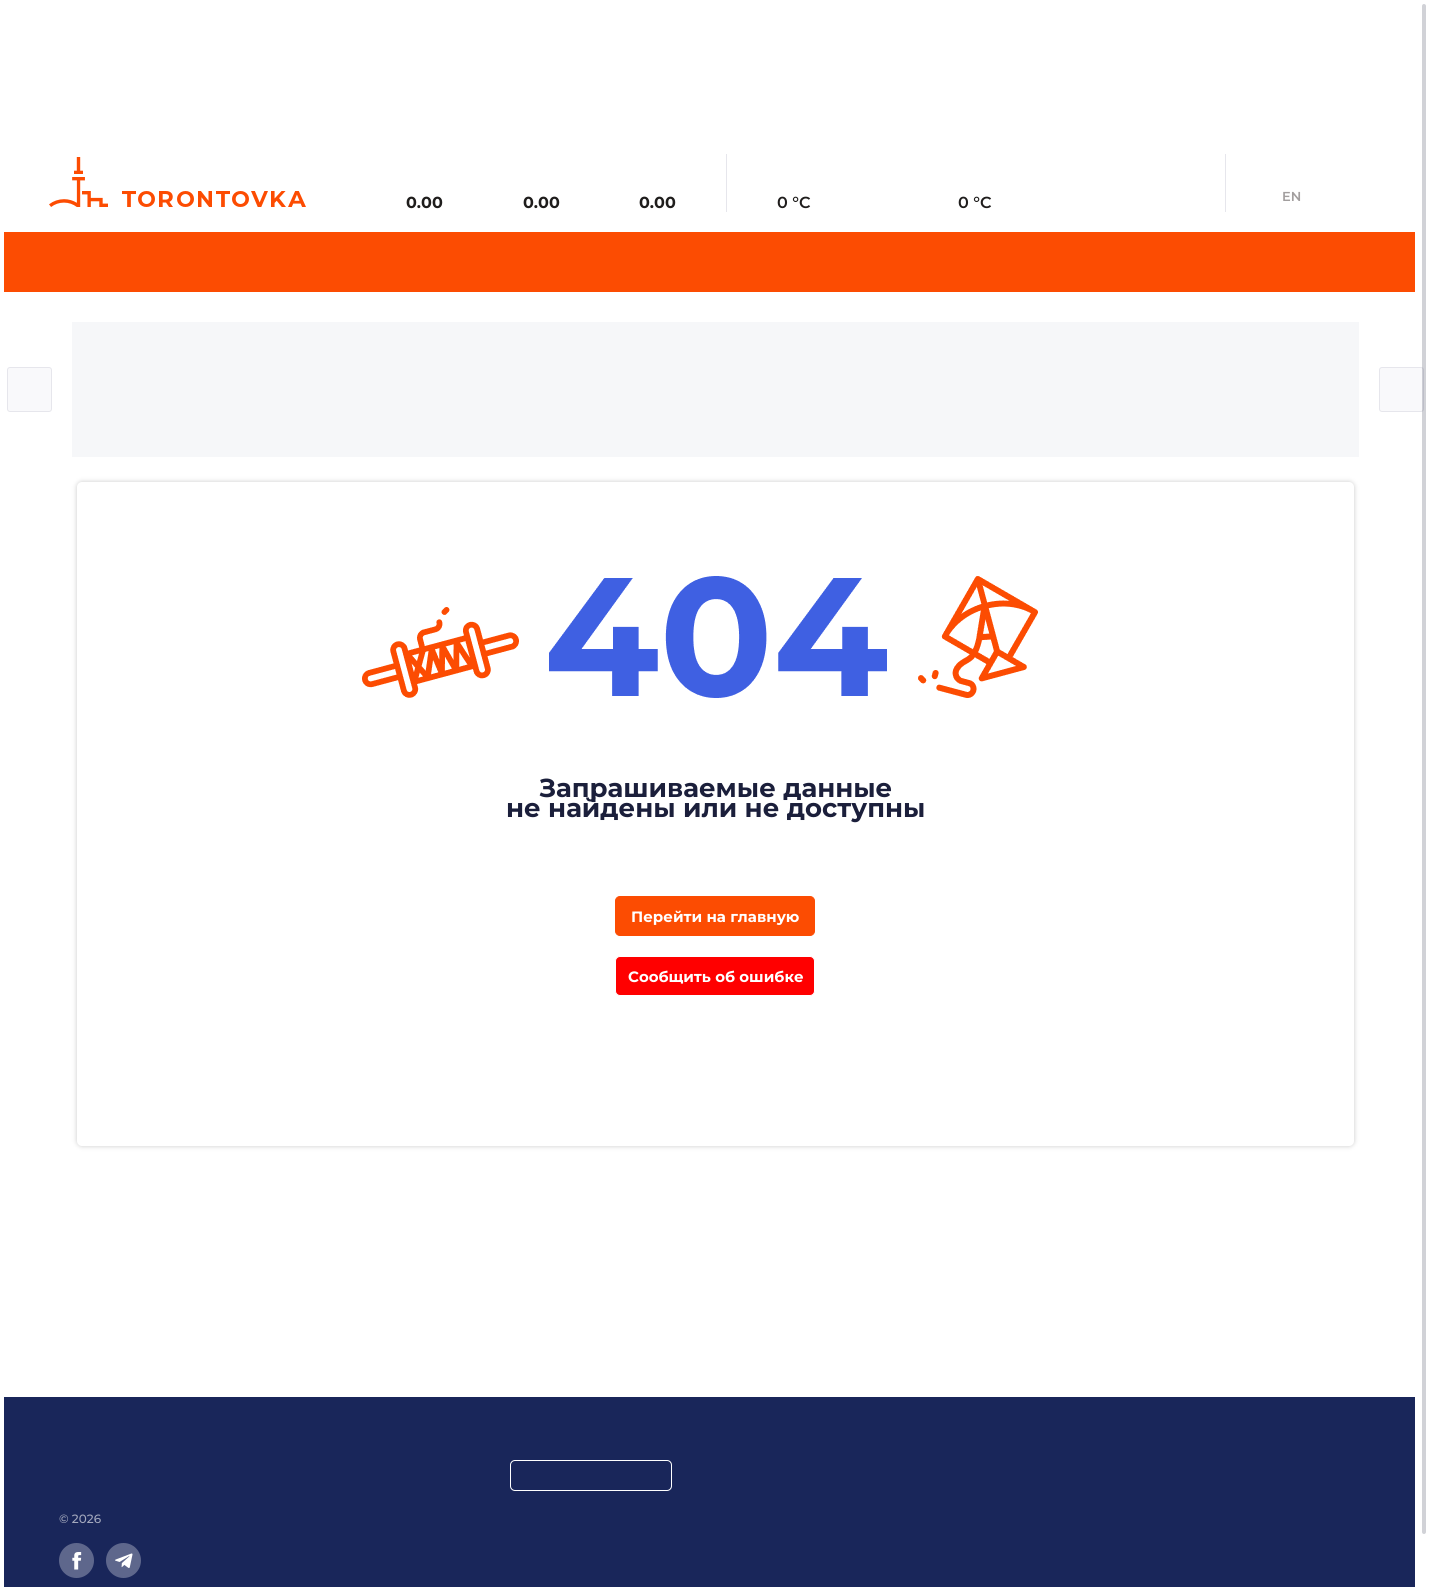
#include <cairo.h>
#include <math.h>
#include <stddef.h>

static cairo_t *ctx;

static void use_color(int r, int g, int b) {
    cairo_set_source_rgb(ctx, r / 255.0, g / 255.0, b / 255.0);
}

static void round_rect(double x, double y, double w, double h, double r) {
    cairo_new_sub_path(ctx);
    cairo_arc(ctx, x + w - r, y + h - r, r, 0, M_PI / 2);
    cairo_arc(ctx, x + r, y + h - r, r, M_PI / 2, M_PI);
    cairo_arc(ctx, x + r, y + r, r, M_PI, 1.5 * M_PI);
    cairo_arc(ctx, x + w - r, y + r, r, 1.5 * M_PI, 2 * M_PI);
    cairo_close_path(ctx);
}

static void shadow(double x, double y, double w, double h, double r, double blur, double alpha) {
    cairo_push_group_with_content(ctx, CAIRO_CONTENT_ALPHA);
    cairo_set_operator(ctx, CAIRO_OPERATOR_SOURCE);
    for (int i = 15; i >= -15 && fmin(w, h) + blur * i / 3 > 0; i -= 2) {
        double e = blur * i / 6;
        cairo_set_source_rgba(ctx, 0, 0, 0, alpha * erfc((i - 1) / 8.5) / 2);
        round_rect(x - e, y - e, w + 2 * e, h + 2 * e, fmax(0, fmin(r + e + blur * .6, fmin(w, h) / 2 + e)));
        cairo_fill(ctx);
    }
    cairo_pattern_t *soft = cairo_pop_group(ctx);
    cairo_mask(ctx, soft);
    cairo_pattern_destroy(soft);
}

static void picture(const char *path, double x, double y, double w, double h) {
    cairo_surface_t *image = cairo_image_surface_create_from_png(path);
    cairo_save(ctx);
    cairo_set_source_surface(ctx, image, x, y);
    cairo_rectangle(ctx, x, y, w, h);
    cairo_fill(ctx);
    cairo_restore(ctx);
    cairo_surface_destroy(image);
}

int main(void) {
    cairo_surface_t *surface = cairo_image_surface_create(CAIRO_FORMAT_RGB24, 1431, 1587);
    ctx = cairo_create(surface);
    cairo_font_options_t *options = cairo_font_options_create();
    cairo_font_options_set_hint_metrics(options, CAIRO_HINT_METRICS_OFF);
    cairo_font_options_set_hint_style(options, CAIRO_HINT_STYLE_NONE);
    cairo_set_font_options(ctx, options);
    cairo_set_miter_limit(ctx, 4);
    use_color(255, 255, 255);
    cairo_paint(ctx);
    picture("img1.png", 49, 157, 257, 50);
    cairo_select_font_face(ctx, "Montserrat Thin", CAIRO_FONT_SLANT_NORMAL, CAIRO_FONT_WEIGHT_NORMAL);
    cairo_set_font_size(ctx, 16);
    use_color(31, 29, 28);
    cairo_move_to(ctx, 406, 208);
    cairo_show_text(ctx, "0.00");
    cairo_move_to(ctx, 523, 208);
    cairo_show_text(ctx, "0.00");
    cairo_move_to(ctx, 639, 208);
    cairo_show_text(ctx, "0.00");
    use_color(230, 230, 236);
    cairo_rectangle(ctx, 726, 154, 1, 58);
    cairo_fill(ctx);
    cairo_select_font_face(ctx, "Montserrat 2 Thin", CAIRO_FONT_SLANT_NORMAL, CAIRO_FONT_WEIGHT_NORMAL);
    use_color(31, 29, 28);
    cairo_move_to(ctx, 777, 208);
    cairo_show_text(ctx, "0 °C");
    cairo_move_to(ctx, 958, 208);
    cairo_show_text(ctx, "0 °C");
    use_color(230, 230, 236);
    cairo_rectangle(ctx, 1225, 154, 1, 58);
    cairo_fill(ctx);
    cairo_set_font_size(ctx, 13);
    use_color(162, 158, 158);
    cairo_move_to(ctx, 1282, 201);
    cairo_show_text(ctx, "EN");
    use_color(252, 76, 2);
    cairo_rectangle(ctx, 4, 232, 1411, 60);
    cairo_fill(ctx);
    use_color(246, 247, 249);
    cairo_rectangle(ctx, 72, 322, 1287, 135);
    cairo_fill(ctx);
    use_color(249, 249, 251);
    round_rect(7.5, 367.5, 44, 44, 2.5);
    cairo_fill_preserve(ctx);
    use_color(230, 230, 236);
    cairo_set_line_width(ctx, 1);
    cairo_stroke(ctx);
    use_color(249, 249, 251);
    round_rect(1379.5, 367.5, 44, 44, 2.5);
    cairo_fill_preserve(ctx);
    use_color(230, 230, 236);
    cairo_stroke(ctx);
    use_color(202, 202, 202);
    shadow(77, 482, 1277, 664, 5, 2.5, 1);
    use_color(255, 255, 255);
    round_rect(77, 482, 1277, 664, 5);
    cairo_fill(ctx);
    picture("img2.png", 362, 607, 157, 91);
    picture("img3.png", 549, 576, 338, 122);
    picture("img4.png", 918, 576, 120, 122);
    cairo_select_font_face(ctx, "Montserrat Thin", CAIRO_FONT_SLANT_NORMAL, CAIRO_FONT_WEIGHT_NORMAL);
    cairo_set_font_size(ctx, 26);
    use_color(27, 31, 59);
    cairo_move_to(ctx, 539, 797);
    cairo_show_text(ctx, "Запрашиваемые данные");
    cairo_move_to(ctx, 506, 817);
    cairo_show_text(ctx, "не найдены или не доступны");
    use_color(252, 76, 2);
    round_rect(615.5, 896.5, 199, 39, 4.5);
    cairo_fill_preserve(ctx);
    cairo_stroke(ctx);
    cairo_set_font_size(ctx, 15);
    use_color(255, 255, 255);
    cairo_move_to(ctx, 631, 922);
    cairo_show_text(ctx, "Перейти на главную");
    use_color(255, 0, 0);
    round_rect(615.5, 956.5, 199, 39, 4.5);
    cairo_fill_preserve(ctx);
    use_color(255, 255, 255);
    cairo_stroke(ctx);
    cairo_move_to(ctx, 628, 982);
    cairo_show_text(ctx, "Сообщить об ошибке");
    use_color(25, 38, 90);
    cairo_rectangle(ctx, 4, 1397, 1411, 190);
    cairo_fill(ctx);
    round_rect(510.5, 1460.5, 161, 30, 4.5);
    use_color(255, 255, 255);
    cairo_stroke(ctx);
    cairo_select_font_face(ctx, "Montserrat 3 Thin", CAIRO_FONT_SLANT_NORMAL, CAIRO_FONT_WEIGHT_NORMAL);
    cairo_set_font_size(ctx, 12);
    use_color(163, 168, 189);
    cairo_move_to(ctx, 59, 1523);
    cairo_show_text(ctx, "© 2026");
    use_color(94, 103, 140);
    cairo_new_path(ctx);
    cairo_arc(ctx, 76.5, 1560.5, 17.5, 0, 2 * M_PI);
    cairo_fill(ctx);
    picture("img5.png", 72, 1552, 10, 18);
    cairo_arc(ctx, 123.5, 1560.5, 17.5, 0, 2 * M_PI);
    cairo_fill(ctx);
    picture("img6.png", 115, 1553, 18, 15);
    cairo_set_source_rgba(ctx, 0.106, 0.122, 0.231, 0.2);
    round_rect(1422, 4, 4, 1530, 2);
    cairo_fill(ctx);
    cairo_surface_write_to_png(surface, "result.png");
    cairo_font_options_destroy(options);
    cairo_destroy(ctx);
    cairo_surface_destroy(surface);
    return 0;
}
